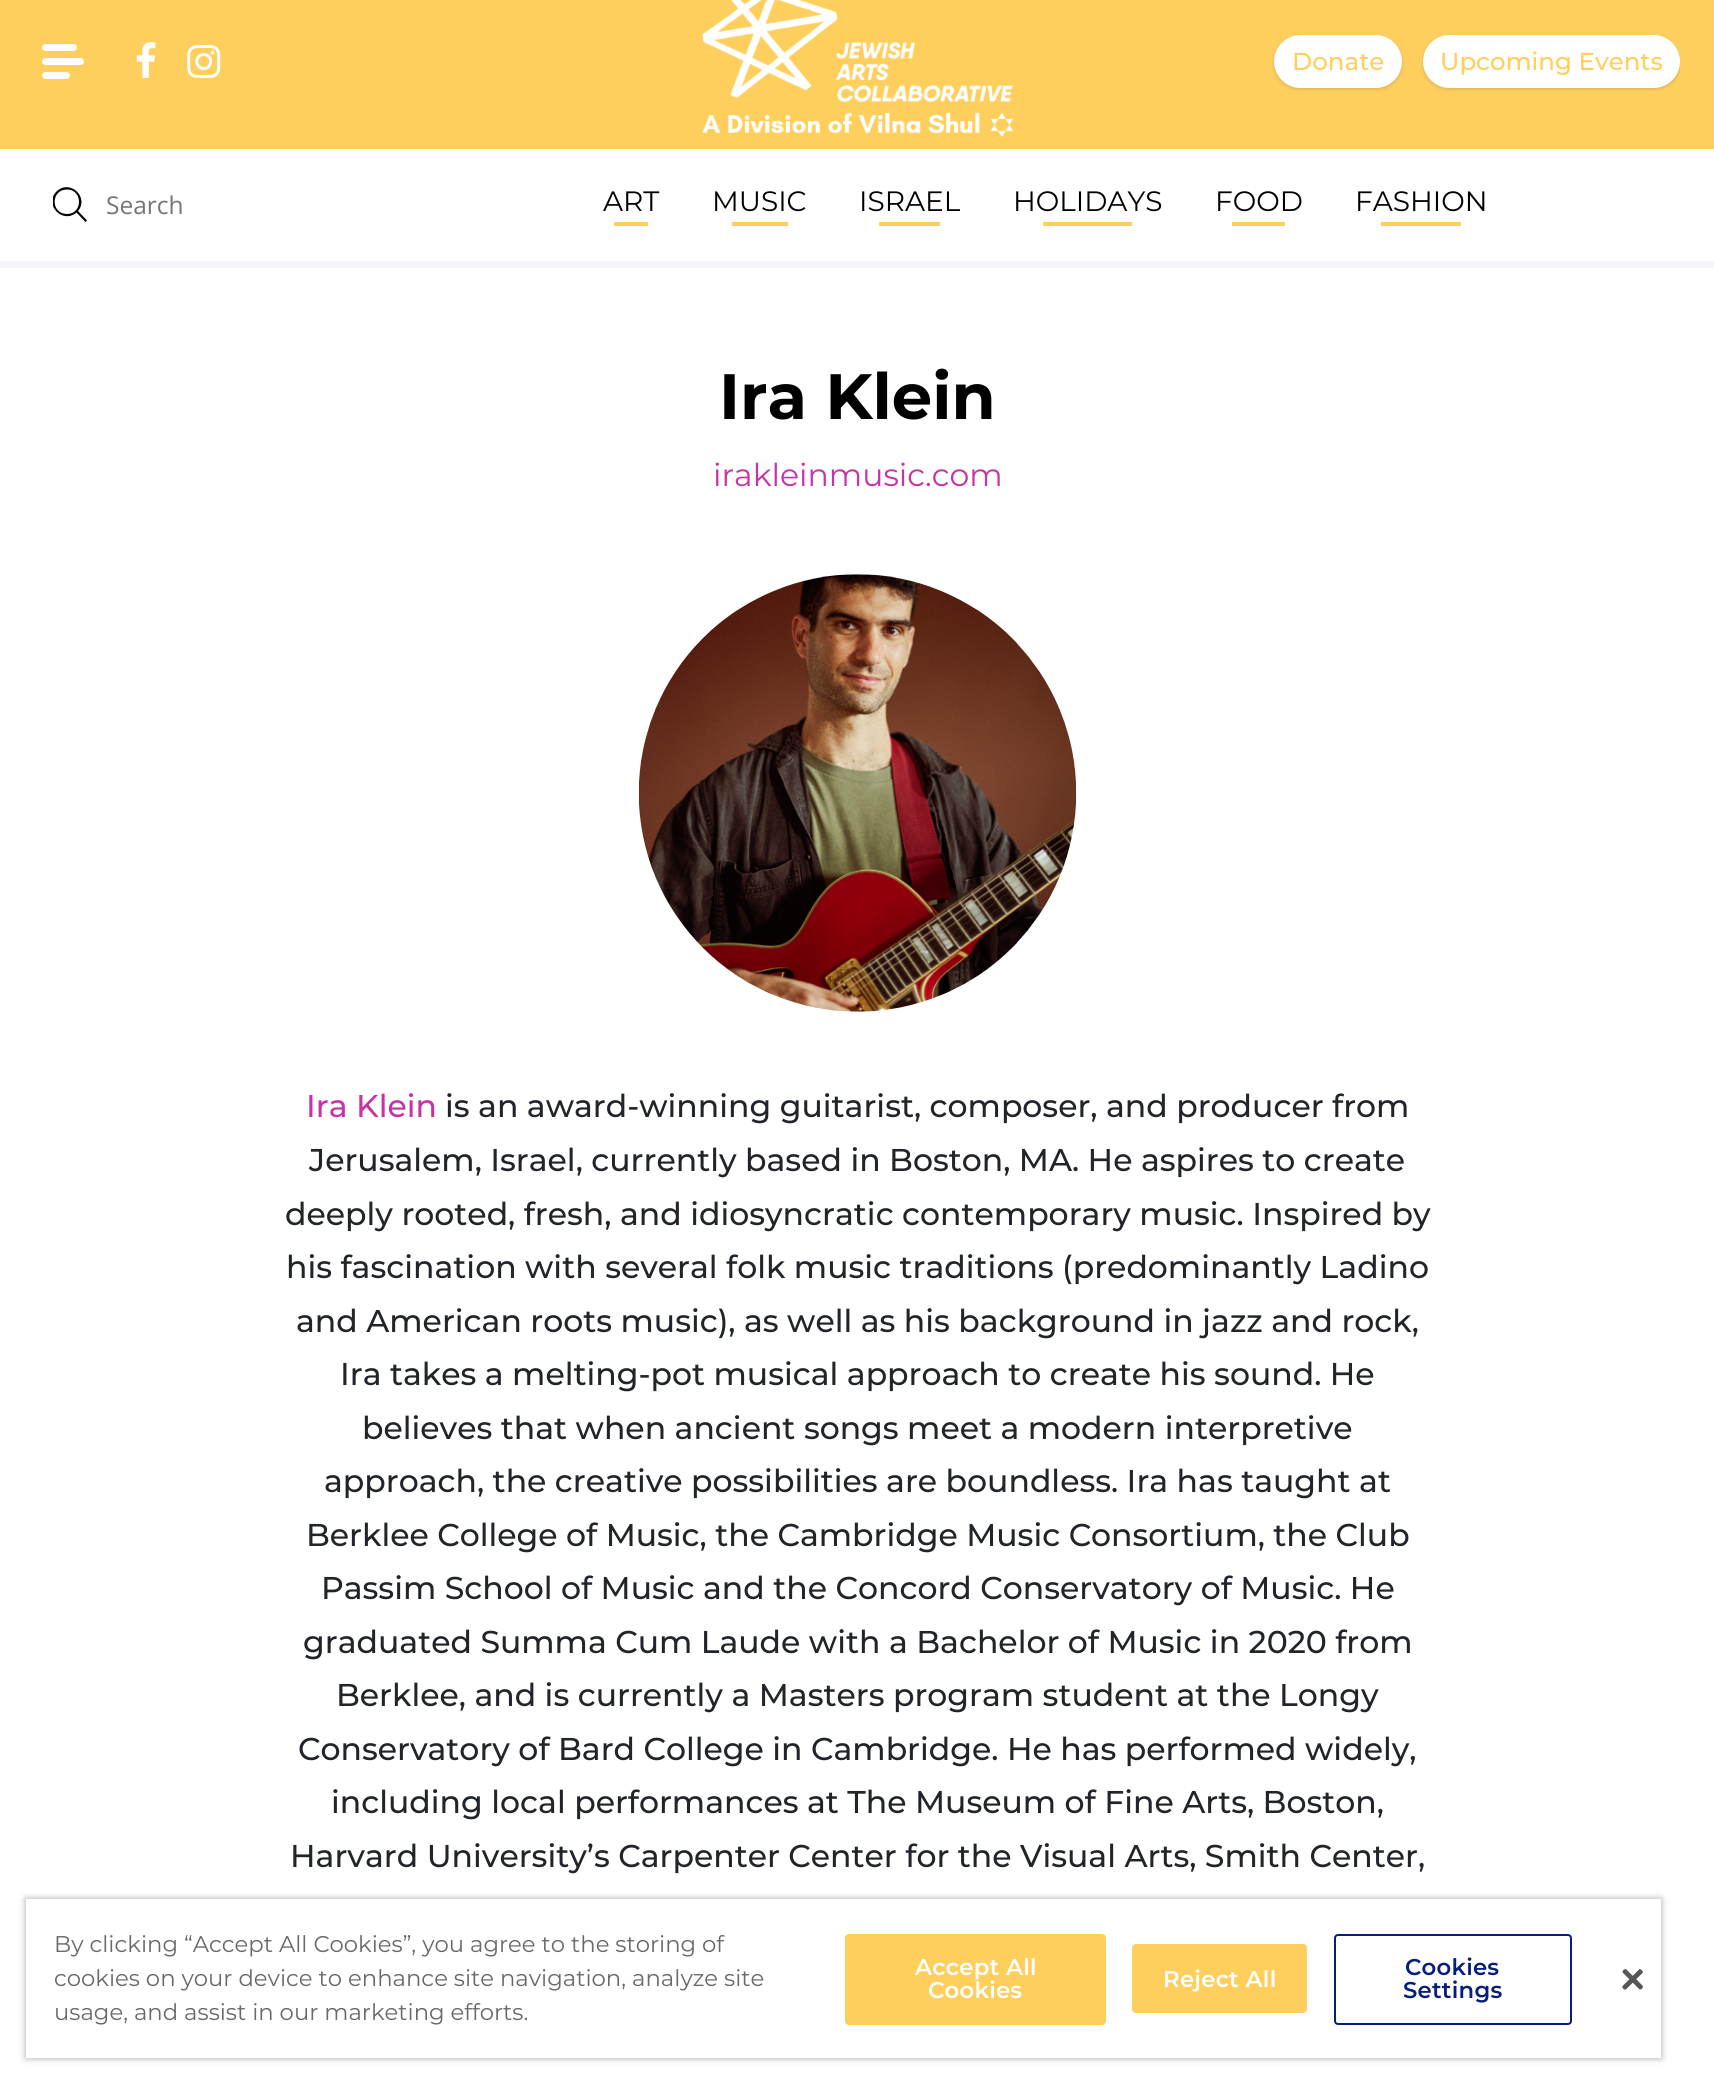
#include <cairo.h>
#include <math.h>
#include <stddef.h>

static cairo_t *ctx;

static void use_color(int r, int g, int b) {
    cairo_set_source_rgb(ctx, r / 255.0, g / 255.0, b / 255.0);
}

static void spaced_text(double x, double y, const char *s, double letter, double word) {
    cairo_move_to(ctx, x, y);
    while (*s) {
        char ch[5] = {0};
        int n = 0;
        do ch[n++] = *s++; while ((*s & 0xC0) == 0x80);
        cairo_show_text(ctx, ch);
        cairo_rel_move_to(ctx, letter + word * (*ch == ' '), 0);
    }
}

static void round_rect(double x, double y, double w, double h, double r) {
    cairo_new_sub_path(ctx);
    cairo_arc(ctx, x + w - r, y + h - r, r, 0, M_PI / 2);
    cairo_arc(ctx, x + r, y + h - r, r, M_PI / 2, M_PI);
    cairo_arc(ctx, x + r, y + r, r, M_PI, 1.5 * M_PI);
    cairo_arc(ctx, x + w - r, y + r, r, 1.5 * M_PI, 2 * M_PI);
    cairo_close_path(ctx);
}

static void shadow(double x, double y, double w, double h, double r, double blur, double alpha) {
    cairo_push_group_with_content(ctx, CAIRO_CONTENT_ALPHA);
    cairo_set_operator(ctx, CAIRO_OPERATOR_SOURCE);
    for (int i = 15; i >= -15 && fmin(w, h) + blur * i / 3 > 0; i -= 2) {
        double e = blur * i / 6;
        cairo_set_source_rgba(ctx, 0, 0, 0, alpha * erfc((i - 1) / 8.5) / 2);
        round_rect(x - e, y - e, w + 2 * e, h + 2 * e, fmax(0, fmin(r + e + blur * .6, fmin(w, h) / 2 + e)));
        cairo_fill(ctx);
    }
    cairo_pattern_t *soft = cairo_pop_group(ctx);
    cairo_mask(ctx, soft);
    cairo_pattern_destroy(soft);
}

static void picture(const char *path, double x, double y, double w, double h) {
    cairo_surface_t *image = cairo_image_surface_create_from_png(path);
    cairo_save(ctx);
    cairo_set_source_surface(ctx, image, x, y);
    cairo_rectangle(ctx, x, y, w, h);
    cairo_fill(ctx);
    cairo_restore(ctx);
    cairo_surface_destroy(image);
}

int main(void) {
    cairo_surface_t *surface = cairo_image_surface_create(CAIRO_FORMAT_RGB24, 1714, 2083);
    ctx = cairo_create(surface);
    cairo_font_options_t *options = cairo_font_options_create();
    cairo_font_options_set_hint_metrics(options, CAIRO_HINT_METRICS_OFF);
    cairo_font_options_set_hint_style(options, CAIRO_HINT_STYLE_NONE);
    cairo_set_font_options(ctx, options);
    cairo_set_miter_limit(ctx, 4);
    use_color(255, 255, 255);
    cairo_paint(ctx);
    use_color(244, 246, 249);
    cairo_rectangle(ctx, 0, 261, 1714, 7);
    cairo_fill(ctx);
    use_color(255, 207, 94);
    cairo_rectangle(ctx, 0, 0, 1714, 149);
    cairo_fill(ctx);
    use_color(255, 255, 255);
    round_rect(42, 44, 35, 7, 3.5);
    cairo_fill(ctx);
    round_rect(42, 58, 42, 7, 3.5);
    cairo_fill(ctx);
    round_rect(42, 72, 28, 7, 3.5);
    cairo_fill(ctx);
    picture("img1.png", 136, 42, 20, 36);
    picture("img2.png", 187, 45, 34, 33);
    picture("img3.png", 702, 0, 311, 137);
    use_color(0, 0, 0);
    shadow(1274, 37, 128, 52, 26, 2, 0.15);
    use_color(255, 255, 255);
    round_rect(1274, 35, 128, 53, 26.5);
    cairo_fill(ctx);
    cairo_select_font_face(ctx, "Montserrat Medium", CAIRO_FONT_SLANT_NORMAL, CAIRO_FONT_WEIGHT_NORMAL);
    cairo_set_font_size(ctx, 24.5);
    use_color(255, 207, 94);
    cairo_move_to(ctx, 1292, 70);
    cairo_show_text(ctx, "Donate");
    cairo_save(ctx);
    cairo_rectangle(ctx, 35, 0, 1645, 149);
    cairo_clip(ctx);
    use_color(0, 0, 0);
    shadow(1423, 37, 257, 52, 26, 2, 0.15);
    cairo_restore(ctx);
    use_color(255, 255, 255);
    round_rect(1423, 35, 257, 53, 26.5);
    cairo_fill(ctx);
    use_color(255, 207, 94);
    cairo_move_to(ctx, 1440, 70);
    cairo_show_text(ctx, "Upcoming Events");
    cairo_save(ctx);
    cairo_rectangle(ctx, 53, 187, 35, 35);
    cairo_clip(ctx);
    use_color(0, 0, 0);
    cairo_set_fill_rule(ctx, CAIRO_FILL_RULE_EVEN_ODD);
    cairo_new_path(ctx);
    cairo_move_to(ctx, 67, 214);
    cairo_curve_to(ctx, 50.5, 214, 50.5, 189.5, 67, 189.5);
    cairo_curve_to(ctx, 83, 189.5, 83, 214, 67, 214);
    cairo_close_path(ctx);
    cairo_move_to(ctx, 78, 211);
    cairo_curve_to(ctx, 89.5, 197.5, 70, 178.5, 56.5, 191.5);
    cairo_curve_to(ctx, 43.5, 204.5, 62.5, 224.5, 76.5, 212.5);
    cairo_line_to(ctx, 85.5, 222);
    cairo_line_to(ctx, 87, 220.5);
    cairo_close_path(ctx);
    cairo_fill(ctx);
    cairo_restore(ctx);
    cairo_select_font_face(ctx, "Open Sans", CAIRO_FONT_SLANT_NORMAL, CAIRO_FONT_WEIGHT_NORMAL);
    use_color(117, 117, 117);
    cairo_move_to(ctx, 106, 214);
    cairo_show_text(ctx, "Search");
    cairo_select_font_face(ctx, "Montserrat", CAIRO_FONT_SLANT_NORMAL, CAIRO_FONT_WEIGHT_NORMAL);
    cairo_set_font_size(ctx, 28);
    use_color(0, 0, 0);
    cairo_move_to(ctx, 603, 211);
    cairo_show_text(ctx, "ART");
    use_color(255, 207, 94);
    cairo_rectangle(ctx, 614, 222, 34, 4);
    cairo_fill(ctx);
    use_color(0, 0, 0);
    cairo_move_to(ctx, 712, 211);
    cairo_show_text(ctx, "MUSIC");
    use_color(255, 207, 94);
    cairo_rectangle(ctx, 732, 222, 56, 4);
    cairo_fill(ctx);
    use_color(0, 0, 0);
    cairo_move_to(ctx, 859, 211);
    cairo_show_text(ctx, "ISRAEL");
    use_color(255, 207, 94);
    cairo_rectangle(ctx, 879, 222, 61, 4);
    cairo_fill(ctx);
    use_color(0, 0, 0);
    cairo_move_to(ctx, 1013, 211);
    cairo_show_text(ctx, "HOLIDAYS");
    use_color(255, 207, 94);
    cairo_rectangle(ctx, 1043, 222, 89, 4);
    cairo_fill(ctx);
    use_color(0, 0, 0);
    cairo_move_to(ctx, 1215, 211);
    cairo_show_text(ctx, "FOOD");
    use_color(255, 207, 94);
    cairo_rectangle(ctx, 1232, 222, 53, 4);
    cairo_fill(ctx);
    use_color(0, 0, 0);
    cairo_move_to(ctx, 1355, 211);
    cairo_show_text(ctx, "FASHION");
    use_color(255, 207, 94);
    cairo_rectangle(ctx, 1381, 222, 80, 4);
    cairo_fill(ctx);
    cairo_select_font_face(ctx, "Montserrat", CAIRO_FONT_SLANT_NORMAL, CAIRO_FONT_WEIGHT_BOLD);
    cairo_set_font_size(ctx, 64);
    use_color(0, 0, 0);
    cairo_move_to(ctx, 719, 419);
    cairo_show_text(ctx, "Ira Klein");
    cairo_select_font_face(ctx, "Montserrat", CAIRO_FONT_SLANT_NORMAL, CAIRO_FONT_WEIGHT_NORMAL);
    cairo_set_font_size(ctx, 31.5);
    use_color(199, 51, 164);
    cairo_move_to(ctx, 713, 486);
    cairo_show_text(ctx, "irakleinmusic.com");
    picture("img4.png", 638, 574, 439, 438);
    cairo_select_font_face(ctx, "Montserrat Medium", CAIRO_FONT_SLANT_NORMAL, CAIRO_FONT_WEIGHT_NORMAL);
    cairo_move_to(ctx, 306, 1117);
    cairo_show_text(ctx, "Ira Klein");
    use_color(33, 37, 41);
    cairo_move_to(ctx, 445, 1117);
    cairo_show_text(ctx, "is an award-winning guitarist, composer, and producer from");
    cairo_move_to(ctx, 309, 1171);
    cairo_show_text(ctx, "Jerusalem, Israel, currently based in Boston, MA. He aspires to create");
    cairo_move_to(ctx, 285, 1225);
    cairo_show_text(ctx, "deeply rooted, fresh, and idiosyncratic contemporary music. Inspired by");
    cairo_move_to(ctx, 286, 1278);
    cairo_show_text(ctx, "his fascination with several folk music traditions (predominantly Ladino");
    cairo_move_to(ctx, 296, 1332);
    cairo_show_text(ctx, "and American roots music), as well as his background in jazz and rock,");
    cairo_move_to(ctx, 340, 1385);
    cairo_show_text(ctx, "Ira takes a melting-pot musical approach to create his sound. He");
    cairo_move_to(ctx, 362, 1439);
    cairo_show_text(ctx, "believes that when ancient songs meet a modern interpretive");
    cairo_move_to(ctx, 324, 1492);
    cairo_show_text(ctx, "approach, the creative possibilities are boundless. Ira has taught at");
    cairo_move_to(ctx, 306, 1546);
    cairo_show_text(ctx, "Berklee College of Music, the Cambridge Music Consortium, the Club");
    cairo_move_to(ctx, 321, 1599);
    cairo_show_text(ctx, "Passim School of Music and the Concord Conservatory of Music. He");
    cairo_move_to(ctx, 303, 1653);
    cairo_show_text(ctx, "graduated Summa Cum Laude with a Bachelor of Music in 2020 from");
    cairo_move_to(ctx, 336, 1706);
    cairo_show_text(ctx, "Berklee, and is currently a Masters program student at the Longy");
    cairo_move_to(ctx, 298, 1760);
    cairo_show_text(ctx, "Conservatory of Bard College in Cambridge. He has performed widely,");
    cairo_move_to(ctx, 331, 1813);
    cairo_show_text(ctx, "including local performances at The Museum of Fine Arts, Boston,");
    cairo_move_to(ctx, 290, 1867);
    cairo_show_text(ctx, "Harvard University’s Carpenter Center for the Visual Arts, Smith Center,");
    use_color(0, 0, 0);
    shadow(26, 1899, 1635, 159, 0, 3.5, 0.35);
    use_color(255, 255, 255);
    cairo_rectangle(ctx, 26, 1899, 1635, 159);
    cairo_fill(ctx);
    cairo_select_font_face(ctx, "Montserrat", CAIRO_FONT_SLANT_NORMAL, CAIRO_FONT_WEIGHT_NORMAL);
    cairo_set_font_size(ctx, 22.75);
    use_color(105, 105, 105);
    cairo_move_to(ctx, 54, 1952);
    cairo_show_text(ctx, "By clicking “Accept All Cookies”, you agree to the storing of");
    cairo_move_to(ctx, 54, 1986);
    cairo_show_text(ctx, "cookies on your device to enhance site navigation, analyze site");
    cairo_move_to(ctx, 54, 2020);
    cairo_show_text(ctx, "usage, and assist in our marketing efforts.");
    use_color(255, 207, 94);
    round_rect(846, 1935, 259, 89, 3);
    cairo_fill_preserve(ctx);
    cairo_stroke(ctx);
    cairo_select_font_face(ctx, "Montserrat SemiBold", CAIRO_FONT_SLANT_NORMAL, CAIRO_FONT_WEIGHT_NORMAL);
    use_color(255, 255, 255);
    spaced_text(915, 1975, "Accept All", 0.25, 0);
    spaced_text(928, 1998, "Cookies", 0.25, 0);
    use_color(255, 207, 94);
    round_rect(1133, 1945, 173, 67, 3);
    cairo_fill_preserve(ctx);
    cairo_stroke(ctx);
    use_color(255, 255, 255);
    spaced_text(1163, 1987, "Reject All", 0.25, 0);
    round_rect(1335, 1935, 236, 89, 3);
    use_color(8, 31, 121);
    cairo_stroke(ctx);
    spaced_text(1405, 1975, "Cookies", 0.25, 0);
    spaced_text(1403, 1998, "Settings", 0.25, 0);
    picture("img5.png", 1622, 1969, 21, 21);
    cairo_surface_write_to_png(surface, "result.png");
    cairo_font_options_destroy(options);
    cairo_destroy(ctx);
    cairo_surface_destroy(surface);
    return 0;
}
